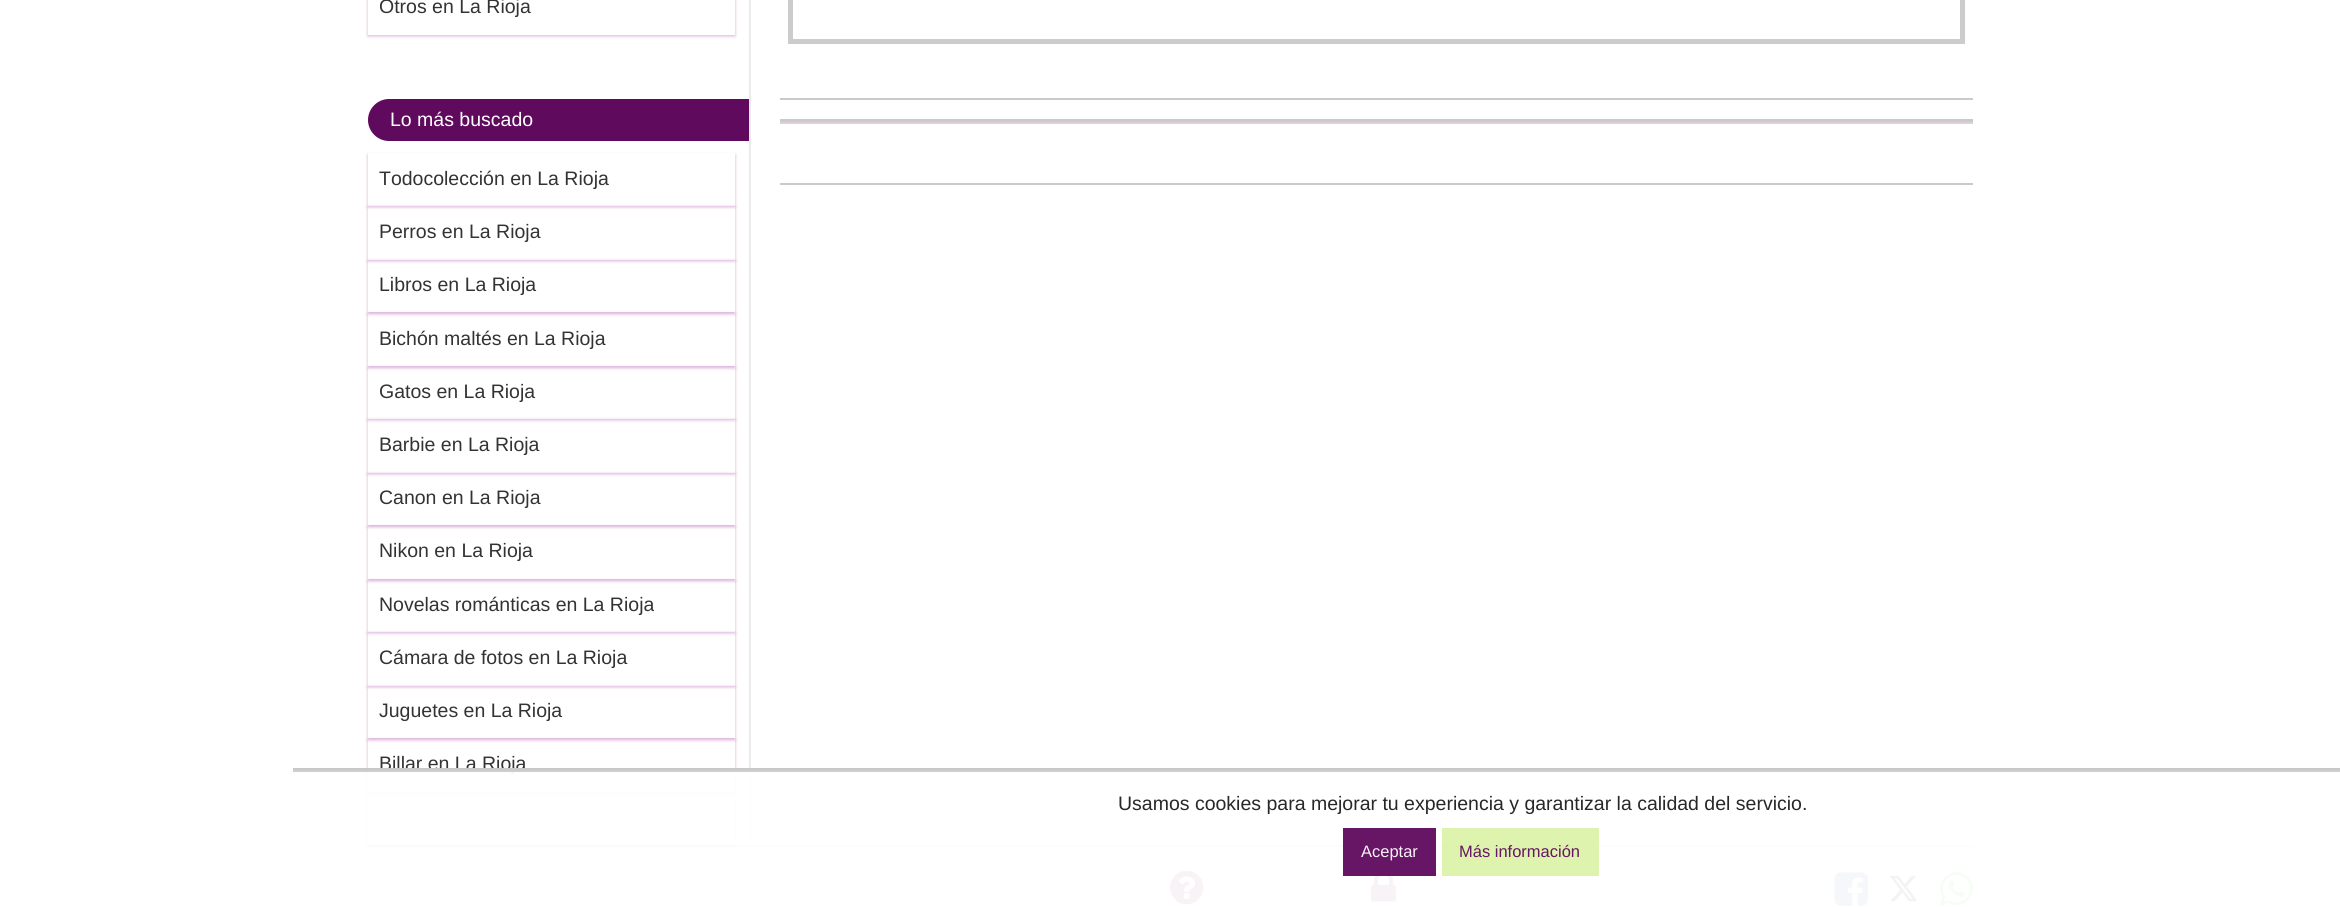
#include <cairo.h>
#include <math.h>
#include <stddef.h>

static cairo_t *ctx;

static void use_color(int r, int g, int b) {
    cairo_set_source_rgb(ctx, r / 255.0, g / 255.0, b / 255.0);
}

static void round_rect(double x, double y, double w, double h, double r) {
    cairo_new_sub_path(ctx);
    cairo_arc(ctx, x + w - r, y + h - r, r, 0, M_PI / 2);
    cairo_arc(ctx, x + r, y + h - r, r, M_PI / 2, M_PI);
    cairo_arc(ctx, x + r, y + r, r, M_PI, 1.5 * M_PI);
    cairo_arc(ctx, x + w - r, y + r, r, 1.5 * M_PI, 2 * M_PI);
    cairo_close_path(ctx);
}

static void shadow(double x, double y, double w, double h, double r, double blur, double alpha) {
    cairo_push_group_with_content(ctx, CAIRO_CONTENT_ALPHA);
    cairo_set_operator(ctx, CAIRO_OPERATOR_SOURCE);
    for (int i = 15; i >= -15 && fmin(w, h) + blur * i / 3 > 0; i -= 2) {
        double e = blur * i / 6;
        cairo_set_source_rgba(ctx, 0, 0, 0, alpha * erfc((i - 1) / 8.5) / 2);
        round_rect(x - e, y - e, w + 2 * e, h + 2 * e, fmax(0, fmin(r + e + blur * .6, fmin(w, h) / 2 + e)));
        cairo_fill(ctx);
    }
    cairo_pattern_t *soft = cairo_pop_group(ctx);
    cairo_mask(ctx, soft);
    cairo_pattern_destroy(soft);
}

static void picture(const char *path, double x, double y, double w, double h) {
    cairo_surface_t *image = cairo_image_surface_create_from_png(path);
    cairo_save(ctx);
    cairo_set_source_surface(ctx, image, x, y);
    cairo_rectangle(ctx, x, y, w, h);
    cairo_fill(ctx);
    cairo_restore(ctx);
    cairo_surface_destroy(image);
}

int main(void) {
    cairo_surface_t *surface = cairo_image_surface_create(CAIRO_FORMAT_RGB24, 2340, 907);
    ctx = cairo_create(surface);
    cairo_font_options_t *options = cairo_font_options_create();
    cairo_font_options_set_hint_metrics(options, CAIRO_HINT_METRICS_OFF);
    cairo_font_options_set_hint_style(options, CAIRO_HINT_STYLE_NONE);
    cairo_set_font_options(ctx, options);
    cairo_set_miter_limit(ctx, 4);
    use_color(255, 255, 255);
    cairo_paint(ctx);
    cairo_save(ctx);
    cairo_set_fill_rule(ctx, CAIRO_FILL_RULE_EVEN_ODD);
    cairo_new_path(ctx);
    cairo_move_to(ctx, 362, 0);
    cairo_line_to(ctx, 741, 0);
    cairo_line_to(ctx, 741, 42);
    cairo_line_to(ctx, 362, 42);
    cairo_close_path(ctx);
    cairo_move_to(ctx, 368, -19);
    cairo_line_to(ctx, 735, -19);
    cairo_line_to(ctx, 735, 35);
    cairo_line_to(ctx, 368, 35);
    cairo_close_path(ctx);
    cairo_clip(ctx);
    use_color(142, 15, 139);
    shadow(368, -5, 367, 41, 0, 1.5, 0.24);
    cairo_restore(ctx);
    cairo_save(ctx);
    cairo_set_fill_rule(ctx, CAIRO_FILL_RULE_EVEN_ODD);
    cairo_new_path(ctx);
    cairo_move_to(ctx, 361, 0);
    cairo_line_to(ctx, 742, 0);
    cairo_line_to(ctx, 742, 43);
    cairo_line_to(ctx, 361, 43);
    cairo_close_path(ctx);
    cairo_move_to(ctx, 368, -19);
    cairo_line_to(ctx, 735, -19);
    cairo_line_to(ctx, 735, 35);
    cairo_line_to(ctx, 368, 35);
    cairo_close_path(ctx);
    cairo_clip(ctx);
    use_color(142, 15, 139);
    shadow(368, -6, 367, 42, 0, 2, 0.12);
    cairo_restore(ctx);
    cairo_select_font_face(ctx, "Liberation Sans", CAIRO_FONT_SLANT_NORMAL, CAIRO_FONT_WEIGHT_NORMAL);
    cairo_set_font_size(ctx, 19.5);
    use_color(51, 51, 51);
    cairo_move_to(ctx, 379, 13);
    cairo_show_text(ctx, "Otros en La Rioja");
    use_color(96, 10, 94);
    cairo_new_path(ctx);
    cairo_move_to(ctx, 389, 99);
    cairo_line_to(ctx, 750, 99);
    cairo_line_to(ctx, 750, 141);
    cairo_line_to(ctx, 389, 141);
    cairo_curve_to(ctx, 377.5, 141, 368, 131.5, 368, 120);
    cairo_curve_to(ctx, 368, 108.5, 377.5, 99, 389, 99);
    cairo_close_path(ctx);
    cairo_fill(ctx);
    use_color(255, 255, 255);
    cairo_move_to(ctx, 390, 126);
    cairo_show_text(ctx, "Lo más buscado");
    cairo_save(ctx);
    cairo_set_fill_rule(ctx, CAIRO_FILL_RULE_EVEN_ODD);
    cairo_new_path(ctx);
    cairo_move_to(ctx, 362, 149);
    cairo_line_to(ctx, 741, 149);
    cairo_line_to(ctx, 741, 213);
    cairo_line_to(ctx, 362, 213);
    cairo_close_path(ctx);
    cairo_move_to(ctx, 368, 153);
    cairo_line_to(ctx, 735, 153);
    cairo_line_to(ctx, 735, 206);
    cairo_line_to(ctx, 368, 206);
    cairo_close_path(ctx);
    cairo_clip(ctx);
    use_color(142, 15, 139);
    shadow(368, 155, 367, 52, 0, 1.5, 0.24);
    cairo_restore(ctx);
    cairo_save(ctx);
    cairo_set_fill_rule(ctx, CAIRO_FILL_RULE_EVEN_ODD);
    cairo_new_path(ctx);
    cairo_move_to(ctx, 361, 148);
    cairo_line_to(ctx, 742, 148);
    cairo_line_to(ctx, 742, 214);
    cairo_line_to(ctx, 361, 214);
    cairo_close_path(ctx);
    cairo_move_to(ctx, 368, 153);
    cairo_line_to(ctx, 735, 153);
    cairo_line_to(ctx, 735, 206);
    cairo_line_to(ctx, 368, 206);
    cairo_close_path(ctx);
    cairo_clip(ctx);
    use_color(142, 15, 139);
    shadow(368, 155, 367, 52, 0, 2, 0.12);
    cairo_restore(ctx);
    use_color(51, 51, 51);
    cairo_move_to(ctx, 379, 185);
    cairo_show_text(ctx, "Todocolección en La Rioja");
    cairo_save(ctx);
    cairo_set_fill_rule(ctx, CAIRO_FILL_RULE_EVEN_ODD);
    cairo_new_path(ctx);
    cairo_move_to(ctx, 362, 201);
    cairo_line_to(ctx, 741, 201);
    cairo_line_to(ctx, 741, 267);
    cairo_line_to(ctx, 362, 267);
    cairo_close_path(ctx);
    cairo_move_to(ctx, 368, 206);
    cairo_line_to(ctx, 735, 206);
    cairo_line_to(ctx, 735, 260);
    cairo_line_to(ctx, 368, 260);
    cairo_close_path(ctx);
    cairo_clip(ctx);
    use_color(142, 15, 139);
    shadow(368, 207, 367, 54, 0, 1.5, 0.24);
    cairo_restore(ctx);
    cairo_save(ctx);
    cairo_set_fill_rule(ctx, CAIRO_FILL_RULE_EVEN_ODD);
    cairo_new_path(ctx);
    cairo_move_to(ctx, 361, 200);
    cairo_line_to(ctx, 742, 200);
    cairo_line_to(ctx, 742, 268);
    cairo_line_to(ctx, 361, 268);
    cairo_close_path(ctx);
    cairo_move_to(ctx, 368, 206);
    cairo_line_to(ctx, 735, 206);
    cairo_line_to(ctx, 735, 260);
    cairo_line_to(ctx, 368, 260);
    cairo_close_path(ctx);
    cairo_clip(ctx);
    use_color(142, 15, 139);
    shadow(368, 207, 367, 54, 0, 2, 0.12);
    cairo_restore(ctx);
    cairo_move_to(ctx, 379, 238);
    cairo_show_text(ctx, "Perros en La Rioja");
    cairo_save(ctx);
    cairo_set_fill_rule(ctx, CAIRO_FILL_RULE_EVEN_ODD);
    cairo_new_path(ctx);
    cairo_move_to(ctx, 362, 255);
    cairo_line_to(ctx, 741, 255);
    cairo_line_to(ctx, 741, 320);
    cairo_line_to(ctx, 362, 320);
    cairo_close_path(ctx);
    cairo_move_to(ctx, 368, 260);
    cairo_line_to(ctx, 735, 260);
    cairo_line_to(ctx, 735, 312);
    cairo_line_to(ctx, 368, 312);
    cairo_close_path(ctx);
    cairo_clip(ctx);
    use_color(142, 15, 139);
    shadow(368, 261, 367, 53, 0, 1.5, 0.24);
    cairo_restore(ctx);
    cairo_save(ctx);
    cairo_set_fill_rule(ctx, CAIRO_FILL_RULE_EVEN_ODD);
    cairo_new_path(ctx);
    cairo_move_to(ctx, 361, 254);
    cairo_line_to(ctx, 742, 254);
    cairo_line_to(ctx, 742, 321);
    cairo_line_to(ctx, 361, 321);
    cairo_close_path(ctx);
    cairo_move_to(ctx, 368, 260);
    cairo_line_to(ctx, 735, 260);
    cairo_line_to(ctx, 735, 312);
    cairo_line_to(ctx, 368, 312);
    cairo_close_path(ctx);
    cairo_clip(ctx);
    use_color(142, 15, 139);
    shadow(368, 261, 367, 53, 0, 2, 0.12);
    cairo_restore(ctx);
    cairo_move_to(ctx, 379, 291);
    cairo_show_text(ctx, "Libros en La Rioja");
    cairo_save(ctx);
    cairo_set_fill_rule(ctx, CAIRO_FILL_RULE_EVEN_ODD);
    cairo_new_path(ctx);
    cairo_move_to(ctx, 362, 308);
    cairo_line_to(ctx, 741, 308);
    cairo_line_to(ctx, 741, 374);
    cairo_line_to(ctx, 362, 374);
    cairo_close_path(ctx);
    cairo_move_to(ctx, 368, 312);
    cairo_line_to(ctx, 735, 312);
    cairo_line_to(ctx, 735, 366);
    cairo_line_to(ctx, 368, 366);
    cairo_close_path(ctx);
    cairo_clip(ctx);
    use_color(142, 15, 139);
    shadow(368, 314, 367, 54, 0, 1.5, 0.24);
    cairo_restore(ctx);
    cairo_save(ctx);
    cairo_set_fill_rule(ctx, CAIRO_FILL_RULE_EVEN_ODD);
    cairo_new_path(ctx);
    cairo_move_to(ctx, 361, 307);
    cairo_line_to(ctx, 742, 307);
    cairo_line_to(ctx, 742, 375);
    cairo_line_to(ctx, 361, 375);
    cairo_close_path(ctx);
    cairo_move_to(ctx, 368, 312);
    cairo_line_to(ctx, 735, 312);
    cairo_line_to(ctx, 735, 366);
    cairo_line_to(ctx, 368, 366);
    cairo_close_path(ctx);
    cairo_clip(ctx);
    use_color(142, 15, 139);
    shadow(368, 314, 367, 54, 0, 2, 0.12);
    cairo_restore(ctx);
    cairo_move_to(ctx, 379, 345);
    cairo_show_text(ctx, "Bichón maltés en La Rioja");
    cairo_save(ctx);
    cairo_set_fill_rule(ctx, CAIRO_FILL_RULE_EVEN_ODD);
    cairo_new_path(ctx);
    cairo_move_to(ctx, 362, 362);
    cairo_line_to(ctx, 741, 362);
    cairo_line_to(ctx, 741, 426);
    cairo_line_to(ctx, 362, 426);
    cairo_close_path(ctx);
    cairo_move_to(ctx, 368, 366);
    cairo_line_to(ctx, 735, 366);
    cairo_line_to(ctx, 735, 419);
    cairo_line_to(ctx, 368, 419);
    cairo_close_path(ctx);
    cairo_clip(ctx);
    use_color(142, 15, 139);
    shadow(368, 368, 367, 52, 0, 1.5, 0.24);
    cairo_restore(ctx);
    cairo_save(ctx);
    cairo_set_fill_rule(ctx, CAIRO_FILL_RULE_EVEN_ODD);
    cairo_new_path(ctx);
    cairo_move_to(ctx, 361, 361);
    cairo_line_to(ctx, 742, 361);
    cairo_line_to(ctx, 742, 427);
    cairo_line_to(ctx, 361, 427);
    cairo_close_path(ctx);
    cairo_move_to(ctx, 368, 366);
    cairo_line_to(ctx, 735, 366);
    cairo_line_to(ctx, 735, 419);
    cairo_line_to(ctx, 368, 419);
    cairo_close_path(ctx);
    cairo_clip(ctx);
    use_color(142, 15, 139);
    shadow(368, 368, 367, 52, 0, 2, 0.12);
    cairo_restore(ctx);
    cairo_move_to(ctx, 379, 398);
    cairo_show_text(ctx, "Gatos en La Rioja");
    cairo_save(ctx);
    cairo_set_fill_rule(ctx, CAIRO_FILL_RULE_EVEN_ODD);
    cairo_new_path(ctx);
    cairo_move_to(ctx, 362, 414);
    cairo_line_to(ctx, 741, 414);
    cairo_line_to(ctx, 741, 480);
    cairo_line_to(ctx, 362, 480);
    cairo_close_path(ctx);
    cairo_move_to(ctx, 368, 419);
    cairo_line_to(ctx, 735, 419);
    cairo_line_to(ctx, 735, 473);
    cairo_line_to(ctx, 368, 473);
    cairo_close_path(ctx);
    cairo_clip(ctx);
    use_color(142, 15, 139);
    shadow(368, 420, 367, 54, 0, 1.5, 0.24);
    cairo_restore(ctx);
    cairo_save(ctx);
    cairo_set_fill_rule(ctx, CAIRO_FILL_RULE_EVEN_ODD);
    cairo_new_path(ctx);
    cairo_move_to(ctx, 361, 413);
    cairo_line_to(ctx, 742, 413);
    cairo_line_to(ctx, 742, 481);
    cairo_line_to(ctx, 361, 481);
    cairo_close_path(ctx);
    cairo_move_to(ctx, 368, 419);
    cairo_line_to(ctx, 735, 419);
    cairo_line_to(ctx, 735, 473);
    cairo_line_to(ctx, 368, 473);
    cairo_close_path(ctx);
    cairo_clip(ctx);
    use_color(142, 15, 139);
    shadow(368, 420, 367, 54, 0, 2, 0.12);
    cairo_restore(ctx);
    cairo_move_to(ctx, 379, 451);
    cairo_show_text(ctx, "Barbie en La Rioja");
    cairo_save(ctx);
    cairo_set_fill_rule(ctx, CAIRO_FILL_RULE_EVEN_ODD);
    cairo_new_path(ctx);
    cairo_move_to(ctx, 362, 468);
    cairo_line_to(ctx, 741, 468);
    cairo_line_to(ctx, 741, 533);
    cairo_line_to(ctx, 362, 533);
    cairo_close_path(ctx);
    cairo_move_to(ctx, 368, 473);
    cairo_line_to(ctx, 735, 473);
    cairo_line_to(ctx, 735, 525);
    cairo_line_to(ctx, 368, 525);
    cairo_close_path(ctx);
    cairo_clip(ctx);
    use_color(142, 15, 139);
    shadow(368, 474, 367, 53, 0, 1.5, 0.24);
    cairo_restore(ctx);
    cairo_save(ctx);
    cairo_set_fill_rule(ctx, CAIRO_FILL_RULE_EVEN_ODD);
    cairo_new_path(ctx);
    cairo_move_to(ctx, 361, 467);
    cairo_line_to(ctx, 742, 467);
    cairo_line_to(ctx, 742, 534);
    cairo_line_to(ctx, 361, 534);
    cairo_close_path(ctx);
    cairo_move_to(ctx, 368, 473);
    cairo_line_to(ctx, 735, 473);
    cairo_line_to(ctx, 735, 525);
    cairo_line_to(ctx, 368, 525);
    cairo_close_path(ctx);
    cairo_clip(ctx);
    use_color(142, 15, 139);
    shadow(368, 474, 367, 53, 0, 2, 0.12);
    cairo_restore(ctx);
    cairo_move_to(ctx, 379, 504);
    cairo_show_text(ctx, "Canon en La Rioja");
    cairo_save(ctx);
    cairo_set_fill_rule(ctx, CAIRO_FILL_RULE_EVEN_ODD);
    cairo_new_path(ctx);
    cairo_move_to(ctx, 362, 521);
    cairo_line_to(ctx, 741, 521);
    cairo_line_to(ctx, 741, 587);
    cairo_line_to(ctx, 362, 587);
    cairo_close_path(ctx);
    cairo_move_to(ctx, 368, 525);
    cairo_line_to(ctx, 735, 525);
    cairo_line_to(ctx, 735, 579);
    cairo_line_to(ctx, 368, 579);
    cairo_close_path(ctx);
    cairo_clip(ctx);
    use_color(142, 15, 139);
    shadow(368, 527, 367, 54, 0, 1.5, 0.24);
    cairo_restore(ctx);
    cairo_save(ctx);
    cairo_set_fill_rule(ctx, CAIRO_FILL_RULE_EVEN_ODD);
    cairo_new_path(ctx);
    cairo_move_to(ctx, 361, 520);
    cairo_line_to(ctx, 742, 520);
    cairo_line_to(ctx, 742, 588);
    cairo_line_to(ctx, 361, 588);
    cairo_close_path(ctx);
    cairo_move_to(ctx, 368, 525);
    cairo_line_to(ctx, 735, 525);
    cairo_line_to(ctx, 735, 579);
    cairo_line_to(ctx, 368, 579);
    cairo_close_path(ctx);
    cairo_clip(ctx);
    use_color(142, 15, 139);
    shadow(368, 527, 367, 54, 0, 2, 0.12);
    cairo_restore(ctx);
    cairo_move_to(ctx, 379, 557);
    cairo_show_text(ctx, "Nikon en La Rioja");
    cairo_save(ctx);
    cairo_set_fill_rule(ctx, CAIRO_FILL_RULE_EVEN_ODD);
    cairo_new_path(ctx);
    cairo_move_to(ctx, 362, 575);
    cairo_line_to(ctx, 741, 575);
    cairo_line_to(ctx, 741, 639);
    cairo_line_to(ctx, 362, 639);
    cairo_close_path(ctx);
    cairo_move_to(ctx, 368, 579);
    cairo_line_to(ctx, 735, 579);
    cairo_line_to(ctx, 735, 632);
    cairo_line_to(ctx, 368, 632);
    cairo_close_path(ctx);
    cairo_clip(ctx);
    use_color(142, 15, 139);
    shadow(368, 581, 367, 52, 0, 1.5, 0.24);
    cairo_restore(ctx);
    cairo_save(ctx);
    cairo_set_fill_rule(ctx, CAIRO_FILL_RULE_EVEN_ODD);
    cairo_new_path(ctx);
    cairo_move_to(ctx, 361, 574);
    cairo_line_to(ctx, 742, 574);
    cairo_line_to(ctx, 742, 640);
    cairo_line_to(ctx, 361, 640);
    cairo_close_path(ctx);
    cairo_move_to(ctx, 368, 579);
    cairo_line_to(ctx, 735, 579);
    cairo_line_to(ctx, 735, 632);
    cairo_line_to(ctx, 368, 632);
    cairo_close_path(ctx);
    cairo_clip(ctx);
    use_color(142, 15, 139);
    shadow(368, 581, 367, 52, 0, 2, 0.12);
    cairo_restore(ctx);
    cairo_move_to(ctx, 379, 611);
    cairo_show_text(ctx, "Novelas románticas en La Rioja");
    cairo_save(ctx);
    cairo_set_fill_rule(ctx, CAIRO_FILL_RULE_EVEN_ODD);
    cairo_new_path(ctx);
    cairo_move_to(ctx, 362, 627);
    cairo_line_to(ctx, 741, 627);
    cairo_line_to(ctx, 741, 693);
    cairo_line_to(ctx, 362, 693);
    cairo_close_path(ctx);
    cairo_move_to(ctx, 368, 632);
    cairo_line_to(ctx, 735, 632);
    cairo_line_to(ctx, 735, 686);
    cairo_line_to(ctx, 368, 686);
    cairo_close_path(ctx);
    cairo_clip(ctx);
    use_color(142, 15, 139);
    shadow(368, 633, 367, 54, 0, 1.5, 0.24);
    cairo_restore(ctx);
    cairo_save(ctx);
    cairo_set_fill_rule(ctx, CAIRO_FILL_RULE_EVEN_ODD);
    cairo_new_path(ctx);
    cairo_move_to(ctx, 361, 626);
    cairo_line_to(ctx, 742, 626);
    cairo_line_to(ctx, 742, 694);
    cairo_line_to(ctx, 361, 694);
    cairo_close_path(ctx);
    cairo_move_to(ctx, 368, 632);
    cairo_line_to(ctx, 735, 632);
    cairo_line_to(ctx, 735, 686);
    cairo_line_to(ctx, 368, 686);
    cairo_close_path(ctx);
    cairo_clip(ctx);
    use_color(142, 15, 139);
    shadow(368, 633, 367, 54, 0, 2, 0.12);
    cairo_restore(ctx);
    cairo_move_to(ctx, 379, 664);
    cairo_show_text(ctx, "Cámara de fotos en La Rioja");
    cairo_save(ctx);
    cairo_set_fill_rule(ctx, CAIRO_FILL_RULE_EVEN_ODD);
    cairo_new_path(ctx);
    cairo_move_to(ctx, 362, 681);
    cairo_line_to(ctx, 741, 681);
    cairo_line_to(ctx, 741, 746);
    cairo_line_to(ctx, 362, 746);
    cairo_close_path(ctx);
    cairo_move_to(ctx, 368, 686);
    cairo_line_to(ctx, 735, 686);
    cairo_line_to(ctx, 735, 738);
    cairo_line_to(ctx, 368, 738);
    cairo_close_path(ctx);
    cairo_clip(ctx);
    use_color(142, 15, 139);
    shadow(368, 687, 367, 53, 0, 1.5, 0.24);
    cairo_restore(ctx);
    cairo_save(ctx);
    cairo_set_fill_rule(ctx, CAIRO_FILL_RULE_EVEN_ODD);
    cairo_new_path(ctx);
    cairo_move_to(ctx, 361, 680);
    cairo_line_to(ctx, 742, 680);
    cairo_line_to(ctx, 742, 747);
    cairo_line_to(ctx, 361, 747);
    cairo_close_path(ctx);
    cairo_move_to(ctx, 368, 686);
    cairo_line_to(ctx, 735, 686);
    cairo_line_to(ctx, 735, 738);
    cairo_line_to(ctx, 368, 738);
    cairo_close_path(ctx);
    cairo_clip(ctx);
    use_color(142, 15, 139);
    shadow(368, 687, 367, 53, 0, 2, 0.12);
    cairo_restore(ctx);
    cairo_move_to(ctx, 379, 717);
    cairo_show_text(ctx, "Juguetes en La Rioja");
    cairo_save(ctx);
    cairo_set_fill_rule(ctx, CAIRO_FILL_RULE_EVEN_ODD);
    cairo_new_path(ctx);
    cairo_move_to(ctx, 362, 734);
    cairo_line_to(ctx, 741, 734);
    cairo_line_to(ctx, 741, 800);
    cairo_line_to(ctx, 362, 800);
    cairo_close_path(ctx);
    cairo_move_to(ctx, 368, 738);
    cairo_line_to(ctx, 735, 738);
    cairo_line_to(ctx, 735, 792);
    cairo_line_to(ctx, 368, 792);
    cairo_close_path(ctx);
    cairo_clip(ctx);
    use_color(142, 15, 139);
    shadow(368, 740, 367, 54, 0, 1.5, 0.24);
    cairo_restore(ctx);
    cairo_save(ctx);
    cairo_set_fill_rule(ctx, CAIRO_FILL_RULE_EVEN_ODD);
    cairo_new_path(ctx);
    cairo_move_to(ctx, 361, 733);
    cairo_line_to(ctx, 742, 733);
    cairo_line_to(ctx, 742, 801);
    cairo_line_to(ctx, 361, 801);
    cairo_close_path(ctx);
    cairo_move_to(ctx, 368, 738);
    cairo_line_to(ctx, 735, 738);
    cairo_line_to(ctx, 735, 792);
    cairo_line_to(ctx, 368, 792);
    cairo_close_path(ctx);
    cairo_clip(ctx);
    use_color(142, 15, 139);
    shadow(368, 740, 367, 54, 0, 2, 0.12);
    cairo_restore(ctx);
    cairo_move_to(ctx, 379, 770);
    cairo_show_text(ctx, "Billar en La Rioja");
    use_color(202, 202, 202);
    cairo_rectangle(ctx, 368, 845, 1605, 2);
    cairo_fill(ctx);
    cairo_save(ctx);
    cairo_set_fill_rule(ctx, CAIRO_FILL_RULE_EVEN_ODD);
    cairo_new_path(ctx);
    cairo_move_to(ctx, 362, 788);
    cairo_line_to(ctx, 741, 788);
    cairo_line_to(ctx, 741, 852);
    cairo_line_to(ctx, 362, 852);
    cairo_close_path(ctx);
    cairo_move_to(ctx, 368, 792);
    cairo_line_to(ctx, 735, 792);
    cairo_line_to(ctx, 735, 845);
    cairo_line_to(ctx, 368, 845);
    cairo_close_path(ctx);
    cairo_clip(ctx);
    use_color(142, 15, 139);
    shadow(368, 794, 367, 52, 0, 1.5, 0.24);
    cairo_restore(ctx);
    cairo_save(ctx);
    cairo_set_fill_rule(ctx, CAIRO_FILL_RULE_EVEN_ODD);
    cairo_new_path(ctx);
    cairo_move_to(ctx, 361, 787);
    cairo_line_to(ctx, 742, 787);
    cairo_line_to(ctx, 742, 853);
    cairo_line_to(ctx, 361, 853);
    cairo_close_path(ctx);
    cairo_move_to(ctx, 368, 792);
    cairo_line_to(ctx, 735, 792);
    cairo_line_to(ctx, 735, 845);
    cairo_line_to(ctx, 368, 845);
    cairo_close_path(ctx);
    cairo_clip(ctx);
    use_color(142, 15, 139);
    shadow(368, 794, 367, 52, 0, 2, 0.12);
    cairo_restore(ctx);
    use_color(235, 235, 235);
    cairo_rectangle(ctx, 749, 0, 2, 845);
    cairo_fill(ctx);
    cairo_rectangle(ctx, 790.5, -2.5, 1172, 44);
    use_color(204, 204, 204);
    cairo_set_line_width(ctx, 5);
    cairo_stroke(ctx);
    use_color(202, 202, 202);
    cairo_rectangle(ctx, 780, 98, 1193, 2);
    cairo_fill(ctx);
    cairo_rectangle(ctx, 780, 119, 1193, 3);
    cairo_fill(ctx);
    use_color(223, 206, 223);
    cairo_rectangle(ctx, 780, 122, 1193, 2);
    cairo_fill(ctx);
    use_color(202, 202, 202);
    cairo_rectangle(ctx, 780, 183, 1193, 2);
    cairo_fill(ctx);
    picture("img1.png", 1170, 870, 34, 35);
    picture("img2.png", 1371, 870, 26, 32);
    picture("img3.png", 1834, 872, 34, 34);
    picture("img4.png", 1890, 875, 27, 27);
    picture("img5.png", 1939, 872, 34, 34);
    cairo_set_source_rgba(ctx, 1, 1, 1, 0.95);
    cairo_rectangle(ctx, 365, 768, 1608, 138);
    cairo_fill(ctx);
    cairo_set_source_rgba(ctx, 0.776, 0.776, 0.776, 0.95);
    cairo_rectangle(ctx, 293, 768, 2047, 2);
    cairo_fill(ctx);
    cairo_set_source_rgba(ctx, 0.8, 0.8, 0.8, 0.95);
    cairo_rectangle(ctx, 293, 770, 2047, 2);
    cairo_fill(ctx);
    use_color(40, 40, 40);
    cairo_move_to(ctx, 1118, 810);
    cairo_show_text(ctx, "Usamos cookies para mejorar tu experiencia y garantizar la calidad del servicio.");
    cairo_set_source_rgba(ctx, 0.376, 0.039, 0.369, 0.95);
    cairo_rectangle(ctx, 1343, 828, 93, 48);
    cairo_fill(ctx);
    cairo_set_font_size(ctx, 16.5);
    use_color(247, 243, 247);
    cairo_move_to(ctx, 1361, 857);
    cairo_show_text(ctx, "Aceptar");
    cairo_set_source_rgba(ctx, 0.804, 0.925, 0.518, 0.66);
    cairo_rectangle(ctx, 1442, 828, 157, 48);
    cairo_fill(ctx);
    use_color(102, 22, 98);
    cairo_move_to(ctx, 1459, 857);
    cairo_show_text(ctx, "Más información");
    cairo_surface_write_to_png(surface, "result.png");
    cairo_font_options_destroy(options);
    cairo_destroy(ctx);
    cairo_surface_destroy(surface);
    return 0;
}
